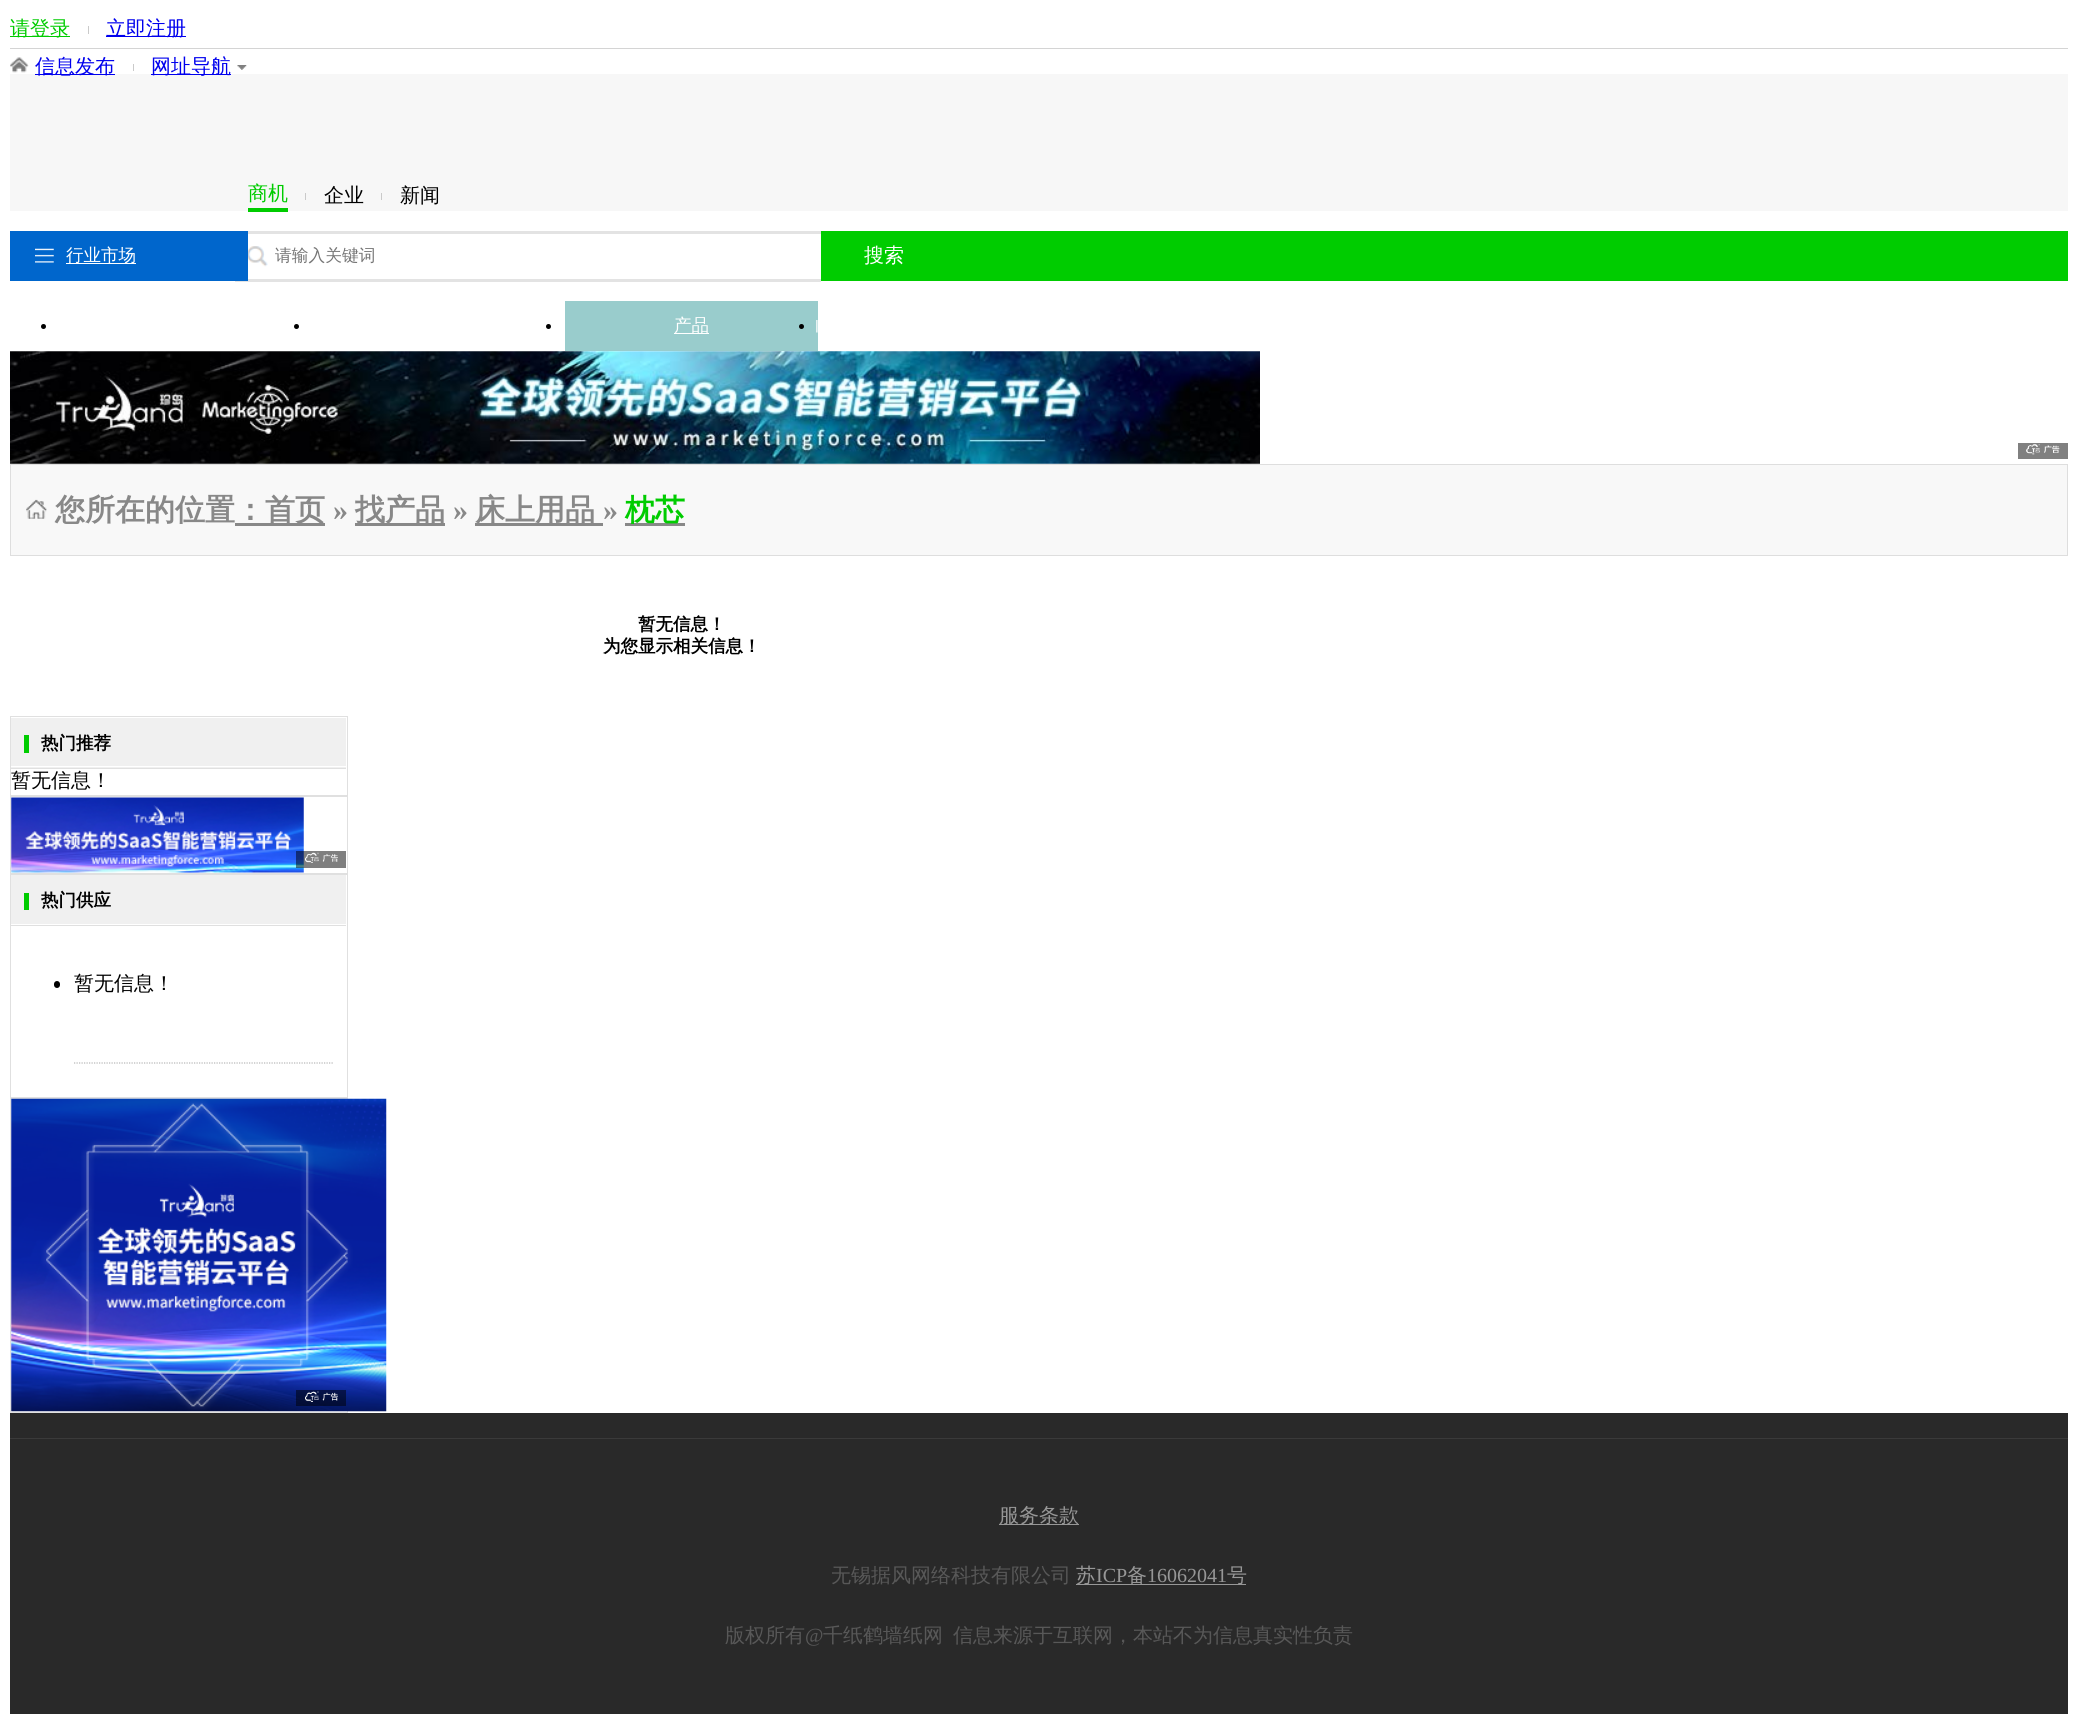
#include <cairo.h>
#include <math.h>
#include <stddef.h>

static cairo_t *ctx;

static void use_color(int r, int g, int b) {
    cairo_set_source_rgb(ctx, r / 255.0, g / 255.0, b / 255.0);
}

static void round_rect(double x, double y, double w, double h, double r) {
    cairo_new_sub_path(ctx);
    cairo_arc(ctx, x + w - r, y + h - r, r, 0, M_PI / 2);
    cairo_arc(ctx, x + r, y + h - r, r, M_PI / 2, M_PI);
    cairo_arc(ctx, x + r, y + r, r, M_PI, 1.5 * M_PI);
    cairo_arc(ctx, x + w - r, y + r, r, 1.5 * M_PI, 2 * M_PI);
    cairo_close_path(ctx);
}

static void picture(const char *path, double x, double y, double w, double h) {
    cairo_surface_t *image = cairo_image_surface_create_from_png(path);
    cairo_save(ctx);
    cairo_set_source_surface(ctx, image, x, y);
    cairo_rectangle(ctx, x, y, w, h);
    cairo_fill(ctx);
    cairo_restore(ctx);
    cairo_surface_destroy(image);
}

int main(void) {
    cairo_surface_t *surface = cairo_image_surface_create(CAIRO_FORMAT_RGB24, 2077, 1723);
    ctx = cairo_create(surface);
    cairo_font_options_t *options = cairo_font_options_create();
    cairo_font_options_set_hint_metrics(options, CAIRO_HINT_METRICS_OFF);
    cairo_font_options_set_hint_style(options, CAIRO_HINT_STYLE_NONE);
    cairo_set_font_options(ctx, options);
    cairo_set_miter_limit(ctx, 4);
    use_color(255, 255, 255);
    cairo_paint(ctx);
    use_color(212, 212, 212);
    cairo_rectangle(ctx, 10, 48, 2058, 1);
    cairo_fill(ctx);
    use_color(0, 204, 0);
    cairo_rectangle(ctx, 10, 36, 60, 1);
    cairo_fill(ctx);
    cairo_select_font_face(ctx, "WenQuanYi Zen Hei Medium", CAIRO_FONT_SLANT_NORMAL, CAIRO_FONT_WEIGHT_NORMAL);
    cairo_set_font_size(ctx, 20);
    cairo_move_to(ctx, 10, 35);
    cairo_show_text(ctx, "请登录");
    use_color(202, 202, 202);
    cairo_rectangle(ctx, 88, 26, 1, 8);
    cairo_fill(ctx);
    use_color(0, 0, 238);
    cairo_rectangle(ctx, 106, 36, 80, 1);
    cairo_fill(ctx);
    cairo_move_to(ctx, 106, 35);
    cairo_show_text(ctx, "立即注册");
    picture("img1.png", 10, 57, 19, 16);
    use_color(247, 247, 247);
    cairo_rectangle(ctx, 10, 74, 2058, 137);
    cairo_fill(ctx);
    use_color(0, 0, 238);
    cairo_rectangle(ctx, 35, 74, 80, 1);
    cairo_fill(ctx);
    cairo_move_to(ctx, 35, 73);
    cairo_show_text(ctx, "信息发布");
    use_color(202, 202, 202);
    cairo_rectangle(ctx, 133, 64, 1, 7);
    cairo_fill(ctx);
    use_color(0, 0, 238);
    cairo_rectangle(ctx, 151, 74, 80, 1);
    cairo_fill(ctx);
    cairo_move_to(ctx, 151, 73);
    cairo_show_text(ctx, "网址导航");
    picture("img2.png", 237, 65, 10, 5);
    use_color(0, 204, 0);
    cairo_rectangle(ctx, 248, 208, 40, 4);
    cairo_fill(ctx);
    cairo_move_to(ctx, 248, 200);
    cairo_show_text(ctx, "商机");
    use_color(202, 202, 202);
    cairo_rectangle(ctx, 305, 193, 1, 7);
    cairo_fill(ctx);
    use_color(0, 0, 0);
    cairo_move_to(ctx, 324, 202);
    cairo_show_text(ctx, "企业");
    use_color(202, 202, 202);
    cairo_rectangle(ctx, 381, 193, 1, 7);
    cairo_fill(ctx);
    use_color(0, 0, 0);
    cairo_move_to(ctx, 400, 202);
    cairo_show_text(ctx, "新闻");
    picture("img3.png", 248, 246, 20, 21);
    use_color(227, 227, 227);
    cairo_rectangle(ctx, 248, 231, 573, 3);
    cairo_fill(ctx);
    cairo_rectangle(ctx, 235, 279, 586, 3);
    cairo_fill(ctx);
    cairo_set_font_size(ctx, 16.75);
    use_color(117, 117, 117);
    cairo_move_to(ctx, 275, 261);
    cairo_show_text(ctx, "请输入关键词");
    use_color(0, 204, 0);
    cairo_rectangle(ctx, 821, 231, 1247, 50);
    cairo_fill(ctx);
    cairo_set_font_size(ctx, 20);
    use_color(255, 255, 255);
    cairo_move_to(ctx, 864, 262);
    cairo_show_text(ctx, "搜索");
    use_color(0, 102, 204);
    cairo_rectangle(ctx, 10, 231, 238, 50);
    cairo_fill(ctx);
    picture("img4.png", 35, 248, 19, 15);
    use_color(255, 255, 255);
    cairo_rectangle(ctx, 66, 263, 70, 1);
    cairo_fill(ctx);
    cairo_set_font_size(ctx, 17.5);
    cairo_move_to(ctx, 66, 261);
    cairo_show_text(ctx, "行业市场");
    use_color(0, 0, 0);
    cairo_new_path(ctx);
    cairo_arc(ctx, 43.5, 326.5, 2.5, 0, 2 * M_PI);
    cairo_fill(ctx);
    cairo_arc(ctx, 296.5, 326.5, 2.5, 0, 2 * M_PI);
    cairo_fill(ctx);
    use_color(153, 204, 204);
    cairo_rectangle(ctx, 565, 301, 253, 50);
    cairo_fill(ctx);
    picture("img5.png", 816, 320, 2, 13);
    use_color(0, 0, 0);
    cairo_arc(ctx, 548.5, 326.5, 2.5, 0, 2 * M_PI);
    cairo_fill(ctx);
    use_color(255, 255, 255);
    cairo_rectangle(ctx, 674, 333, 35, 1);
    cairo_fill(ctx);
    cairo_move_to(ctx, 674, 331);
    cairo_show_text(ctx, "产品");
    use_color(0, 0, 0);
    cairo_new_path(ctx);
    cairo_arc(ctx, 801.5, 326.5, 2.5, 0, 2 * M_PI);
    cairo_fill(ctx);
    picture("img6.png", 10, 351, 1250, 113);
    use_color(128, 128, 128);
    cairo_rectangle(ctx, 2018, 443, 50, 16);
    cairo_fill(ctx);
    picture("img7.png", 2026, 444, 34, 11);
    use_color(248, 248, 248);
    cairo_rectangle(ctx, 10.5, 464.5, 2057, 91);
    cairo_fill_preserve(ctx);
    use_color(222, 222, 222);
    cairo_set_line_width(ctx, 1);
    cairo_stroke(ctx);
    picture("img8.png", 26, 499, 21, 20);
    cairo_select_font_face(ctx, "WenQuanYi Zen Hei", CAIRO_FONT_SLANT_NORMAL, CAIRO_FONT_WEIGHT_BOLD);
    cairo_set_font_size(ctx, 30);
    use_color(136, 136, 136);
    cairo_move_to(ctx, 55, 520);
    cairo_show_text(ctx, "您所在的位置");
    cairo_rectangle(ctx, 235, 523, 90, 3);
    cairo_fill(ctx);
    cairo_move_to(ctx, 235, 520);
    cairo_show_text(ctx, "：首页");
    cairo_select_font_face(ctx, "Liberation Serif", CAIRO_FONT_SLANT_NORMAL, CAIRO_FONT_WEIGHT_BOLD);
    cairo_move_to(ctx, 333, 520);
    cairo_show_text(ctx, "»");
    cairo_rectangle(ctx, 355, 523, 90, 3);
    cairo_fill(ctx);
    cairo_select_font_face(ctx, "WenQuanYi Zen Hei", CAIRO_FONT_SLANT_NORMAL, CAIRO_FONT_WEIGHT_BOLD);
    cairo_move_to(ctx, 355, 520);
    cairo_show_text(ctx, "找产品");
    cairo_select_font_face(ctx, "Liberation Serif", CAIRO_FONT_SLANT_NORMAL, CAIRO_FONT_WEIGHT_BOLD);
    cairo_move_to(ctx, 453, 520);
    cairo_show_text(ctx, "»");
    cairo_rectangle(ctx, 475, 523, 128, 3);
    cairo_fill(ctx);
    cairo_select_font_face(ctx, "WenQuanYi Zen Hei", CAIRO_FONT_SLANT_NORMAL, CAIRO_FONT_WEIGHT_BOLD);
    cairo_move_to(ctx, 475, 520);
    cairo_show_text(ctx, "床上用品");
    cairo_select_font_face(ctx, "Liberation Serif", CAIRO_FONT_SLANT_NORMAL, CAIRO_FONT_WEIGHT_BOLD);
    cairo_move_to(ctx, 603, 520);
    cairo_show_text(ctx, "»");
    cairo_rectangle(ctx, 625, 523, 60, 3);
    cairo_fill(ctx);
    cairo_select_font_face(ctx, "WenQuanYi Zen Hei", CAIRO_FONT_SLANT_NORMAL, CAIRO_FONT_WEIGHT_BOLD);
    use_color(0, 204, 0);
    cairo_move_to(ctx, 625, 520);
    cairo_show_text(ctx, "枕芯");
    cairo_set_font_size(ctx, 17.5);
    use_color(0, 0, 0);
    cairo_move_to(ctx, 638, 630);
    cairo_show_text(ctx, "暂无信息！");
    cairo_move_to(ctx, 603, 652);
    cairo_show_text(ctx, "为您显示相关信息！");
    cairo_rectangle(ctx, 10.5, 716.5, 337, 79);
    use_color(224, 224, 224);
    cairo_stroke(ctx);
    use_color(240, 240, 240);
    cairo_rectangle(ctx, 11, 718, 335, 50);
    cairo_fill(ctx);
    use_color(255, 255, 255);
    cairo_rectangle(ctx, 11, 766, 335, 1);
    cairo_fill(ctx);
    use_color(224, 224, 224);
    cairo_rectangle(ctx, 11, 768, 335, 1);
    cairo_fill(ctx);
    use_color(0, 204, 0);
    cairo_rectangle(ctx, 24, 735, 5, 18);
    cairo_fill(ctx);
    use_color(0, 0, 0);
    cairo_move_to(ctx, 41, 749);
    cairo_show_text(ctx, "热门推荐");
    cairo_select_font_face(ctx, "WenQuanYi Zen Hei Medium", CAIRO_FONT_SLANT_NORMAL, CAIRO_FONT_WEIGHT_NORMAL);
    cairo_set_font_size(ctx, 20);
    cairo_move_to(ctx, 11, 787);
    cairo_show_text(ctx, "暂无信息！");
    cairo_rectangle(ctx, 10.5, 796.5, 337, 77);
    use_color(224, 224, 224);
    cairo_stroke(ctx);
    picture("img9.png", 11, 797, 293, 76);
    cairo_set_source_rgba(ctx, 0, 0, 0, 0.5);
    cairo_rectangle(ctx, 296, 851, 50, 17);
    cairo_fill(ctx);
    picture("img10.png", 305, 852, 33, 11);
    cairo_rectangle(ctx, 10.5, 874.5, 337, 223);
    use_color(224, 224, 224);
    cairo_stroke(ctx);
    use_color(240, 240, 240);
    cairo_rectangle(ctx, 11, 875, 335, 49);
    cairo_fill(ctx);
    use_color(224, 224, 224);
    cairo_rectangle(ctx, 11, 925, 335, 1);
    cairo_fill(ctx);
    use_color(0, 204, 0);
    cairo_rectangle(ctx, 24, 893, 5, 17);
    cairo_fill(ctx);
    cairo_select_font_face(ctx, "WenQuanYi Zen Hei", CAIRO_FONT_SLANT_NORMAL, CAIRO_FONT_WEIGHT_BOLD);
    cairo_set_font_size(ctx, 17.5);
    use_color(0, 0, 0);
    cairo_move_to(ctx, 41, 906);
    cairo_show_text(ctx, "热门供应");
    cairo_new_path(ctx);
    cairo_move_to(ctx, 74, 1063);
    cairo_line_to(ctx, 334, 1063);
    use_color(182, 182, 182);
    cairo_set_line_width(ctx, 1.2);
    cairo_set_dash(ctx, (double[]){1.25, 1.25}, 2, 0);
    cairo_stroke(ctx);
    use_color(0, 0, 0);
    round_rect(54, 981, 6, 7, 3);
    cairo_fill(ctx);
    cairo_select_font_face(ctx, "WenQuanYi Zen Hei Medium", CAIRO_FONT_SLANT_NORMAL, CAIRO_FONT_WEIGHT_NORMAL);
    cairo_set_font_size(ctx, 20);
    cairo_move_to(ctx, 74, 990);
    cairo_show_text(ctx, "暂无信息！");
    cairo_rectangle(ctx, 10.5, 1098.5, 337, 314);
    use_color(224, 224, 224);
    cairo_set_line_width(ctx, 1);
    cairo_set_dash(ctx, NULL, 0, 0);
    cairo_stroke(ctx);
    picture("img11.png", 11, 1098, 376, 314);
    cairo_set_source_rgba(ctx, 0, 0, 0, 0.5);
    cairo_rectangle(ctx, 296, 1390, 50, 16);
    cairo_fill(ctx);
    picture("img12.png", 305, 1391, 33, 11);
    use_color(41, 41, 41);
    cairo_rectangle(ctx, 10, 1413, 2058, 301);
    cairo_fill(ctx);
    use_color(58, 58, 58);
    cairo_rectangle(ctx, 10, 1438, 2058, 1);
    cairo_fill(ctx);
    use_color(151, 151, 151);
    cairo_rectangle(ctx, 999, 1524, 80, 1);
    cairo_fill(ctx);
    cairo_move_to(ctx, 999, 1522);
    cairo_show_text(ctx, "服务条款");
    use_color(88, 88, 88);
    cairo_move_to(ctx, 831, 1582);
    cairo_show_text(ctx, "无锡据风网络科技有限公司");
    use_color(151, 151, 151);
    cairo_rectangle(ctx, 1076, 1584, 170, 1);
    cairo_fill(ctx);
    cairo_move_to(ctx, 1076, 1582);
    cairo_show_text(ctx, "苏");
    cairo_select_font_face(ctx, "Liberation Serif", CAIRO_FONT_SLANT_NORMAL, CAIRO_FONT_WEIGHT_NORMAL);
    cairo_move_to(ctx, 1096, 1582);
    cairo_show_text(ctx, "ICP");
    cairo_select_font_face(ctx, "WenQuanYi Zen Hei Medium", CAIRO_FONT_SLANT_NORMAL, CAIRO_FONT_WEIGHT_NORMAL);
    cairo_move_to(ctx, 1127, 1582);
    cairo_show_text(ctx, "备");
    cairo_select_font_face(ctx, "Liberation Serif", CAIRO_FONT_SLANT_NORMAL, CAIRO_FONT_WEIGHT_NORMAL);
    cairo_move_to(ctx, 1147, 1582);
    cairo_show_text(ctx, "16062041");
    cairo_select_font_face(ctx, "WenQuanYi Zen Hei Medium", CAIRO_FONT_SLANT_NORMAL, CAIRO_FONT_WEIGHT_NORMAL);
    cairo_move_to(ctx, 1227, 1582);
    cairo_show_text(ctx, "号");
    use_color(88, 88, 88);
    cairo_move_to(ctx, 725, 1642);
    cairo_show_text(ctx, "版权所有");
    cairo_select_font_face(ctx, "Liberation Serif", CAIRO_FONT_SLANT_NORMAL, CAIRO_FONT_WEIGHT_NORMAL);
    cairo_move_to(ctx, 805, 1642);
    cairo_show_text(ctx, "@");
    cairo_select_font_face(ctx, "WenQuanYi Zen Hei Medium", CAIRO_FONT_SLANT_NORMAL, CAIRO_FONT_WEIGHT_NORMAL);
    cairo_move_to(ctx, 823, 1642);
    cairo_show_text(ctx, "千纸鹤墙纸网");
    cairo_move_to(ctx, 953, 1642);
    cairo_show_text(ctx, "信息来源于互联网，本站不为信息真实性负责");
    cairo_surface_write_to_png(surface, "result.png");
    cairo_font_options_destroy(options);
    cairo_destroy(ctx);
    cairo_surface_destroy(surface);
    return 0;
}
